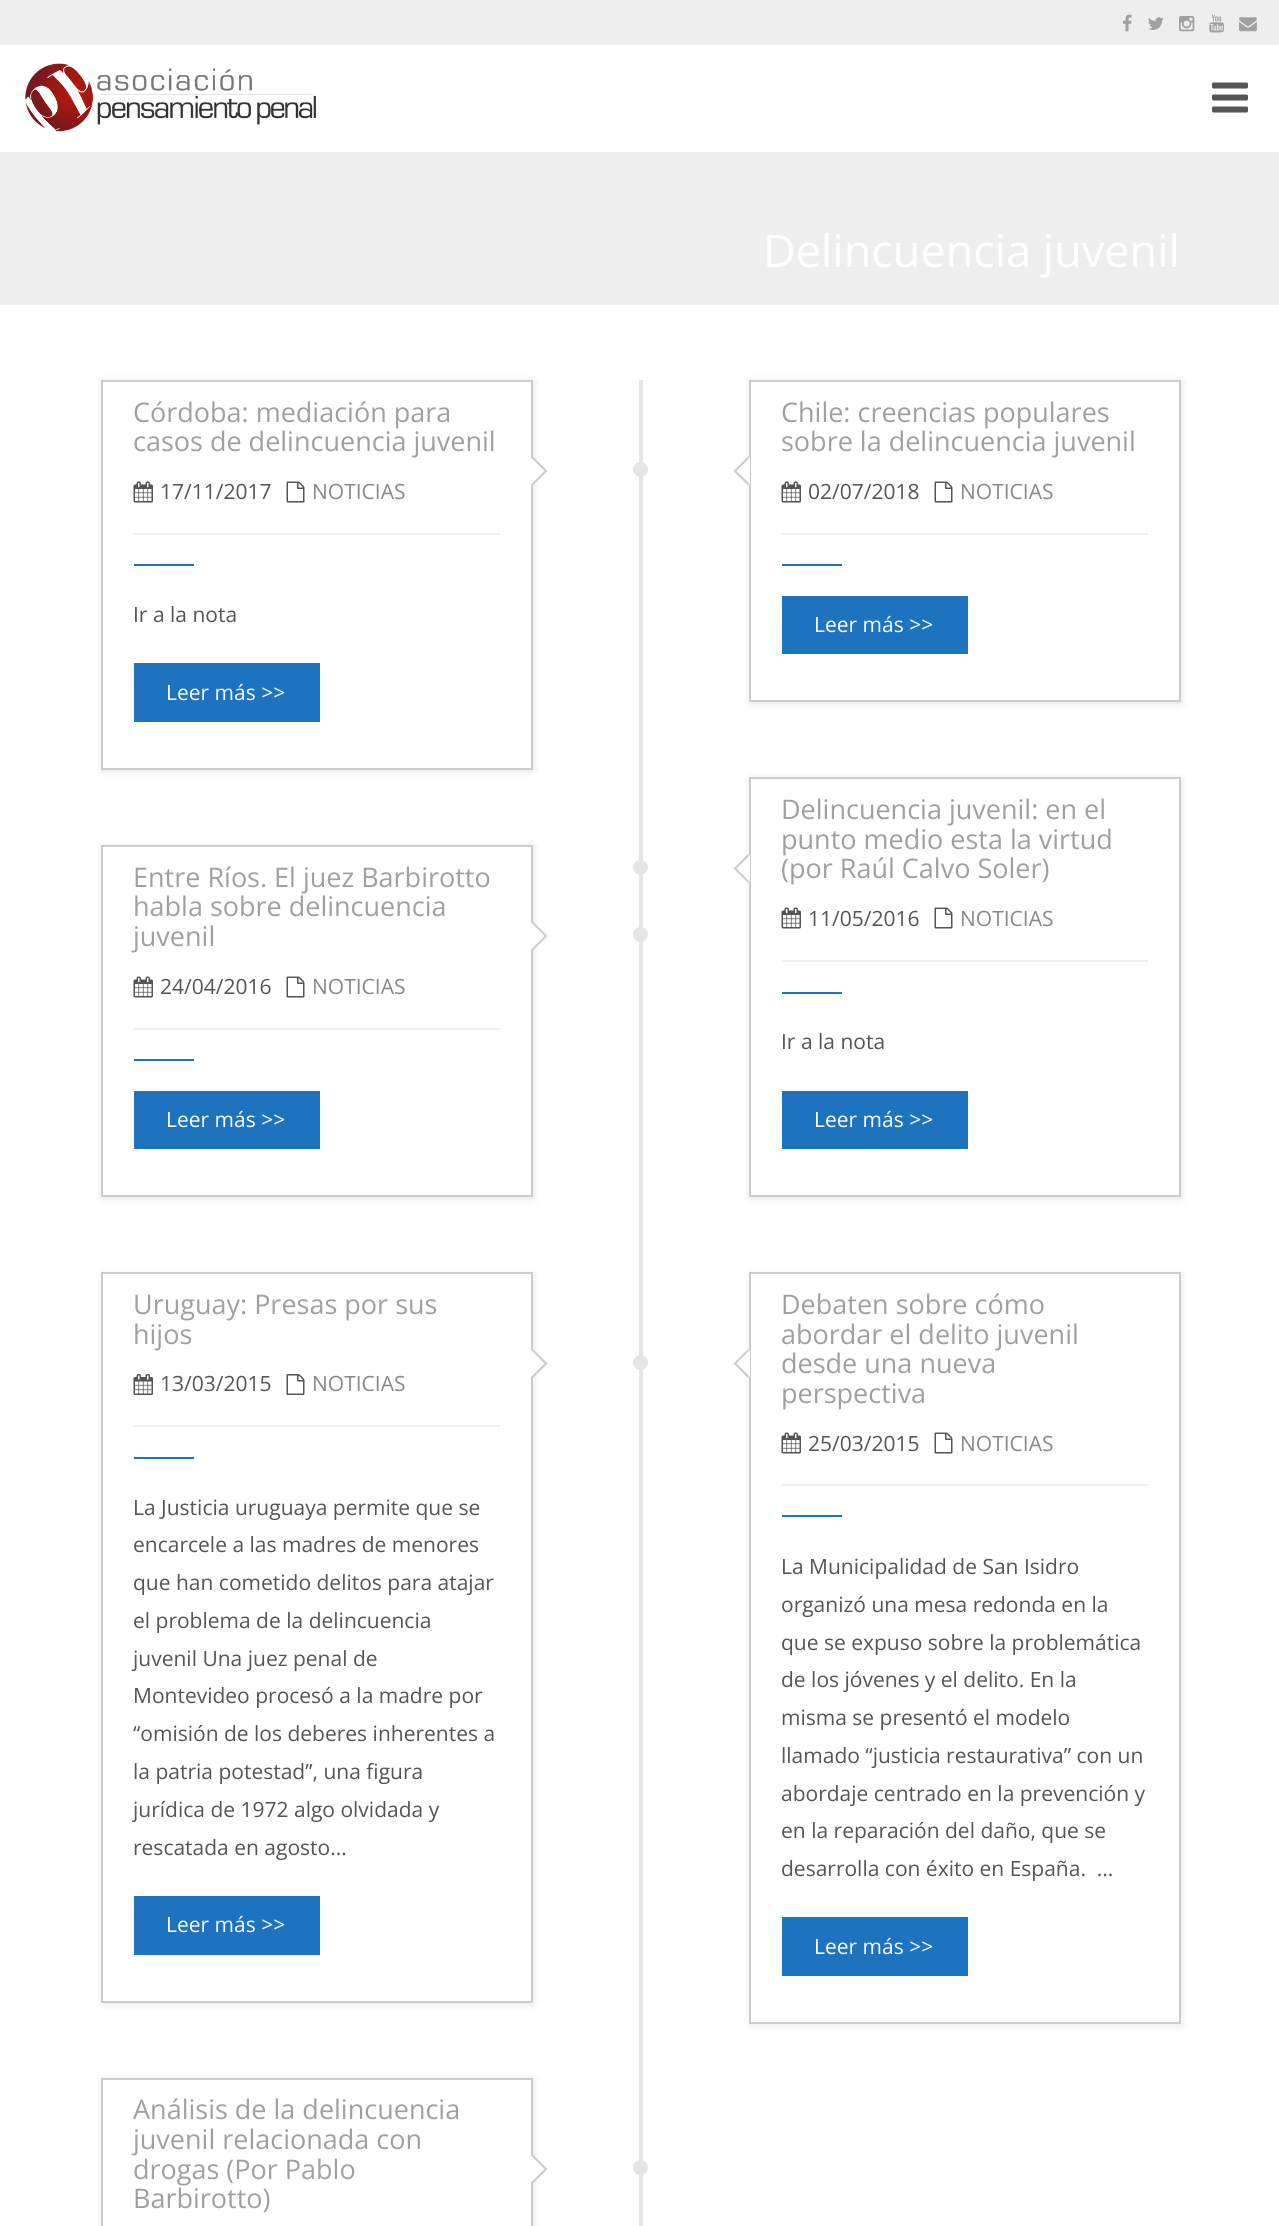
#include <cairo.h>
#include <math.h>
#include <stddef.h>

static cairo_t *ctx;

static void use_color(int r, int g, int b) {
    cairo_set_source_rgb(ctx, r / 255.0, g / 255.0, b / 255.0);
}

static void round_rect(double x, double y, double w, double h, double r) {
    cairo_new_sub_path(ctx);
    cairo_arc(ctx, x + w - r, y + h - r, r, 0, M_PI / 2);
    cairo_arc(ctx, x + r, y + h - r, r, M_PI / 2, M_PI);
    cairo_arc(ctx, x + r, y + r, r, M_PI, 1.5 * M_PI);
    cairo_arc(ctx, x + w - r, y + r, r, 1.5 * M_PI, 2 * M_PI);
    cairo_close_path(ctx);
}

static void shadow(double x, double y, double w, double h, double r, double blur, double alpha) {
    cairo_push_group_with_content(ctx, CAIRO_CONTENT_ALPHA);
    cairo_set_operator(ctx, CAIRO_OPERATOR_SOURCE);
    for (int i = 15; i >= -15 && fmin(w, h) + blur * i / 3 > 0; i -= 2) {
        double e = blur * i / 6;
        cairo_set_source_rgba(ctx, 0, 0, 0, alpha * erfc((i - 1) / 8.5) / 2);
        round_rect(x - e, y - e, w + 2 * e, h + 2 * e, fmax(0, fmin(r + e + blur * .6, fmin(w, h) / 2 + e)));
        cairo_fill(ctx);
    }
    cairo_pattern_t *soft = cairo_pop_group(ctx);
    cairo_mask(ctx, soft);
    cairo_pattern_destroy(soft);
}

static void picture(const char *path, double x, double y, double w, double h) {
    cairo_surface_t *image = cairo_image_surface_create_from_png(path);
    cairo_save(ctx);
    cairo_set_source_surface(ctx, image, x, y);
    cairo_rectangle(ctx, x, y, w, h);
    cairo_fill(ctx);
    cairo_restore(ctx);
    cairo_surface_destroy(image);
}

int main(void) {
    cairo_surface_t *surface = cairo_image_surface_create(CAIRO_FORMAT_RGB24, 1279, 2226);
    ctx = cairo_create(surface);
    cairo_font_options_t *options = cairo_font_options_create();
    cairo_font_options_set_hint_metrics(options, CAIRO_HINT_METRICS_OFF);
    cairo_font_options_set_hint_style(options, CAIRO_HINT_STYLE_NONE);
    cairo_set_font_options(ctx, options);
    cairo_set_miter_limit(ctx, 4);
    use_color(255, 255, 255);
    cairo_paint(ctx);
    use_color(238, 238, 238);
    cairo_rectangle(ctx, 0, 0, 1279, 45);
    cairo_fill(ctx);
    picture("img1.png", 1122, 14, 10, 18);
    picture("img2.png", 1148, 17, 16, 13);
    picture("img3.png", 1179, 16, 16, 16);
    picture("img4.png", 1209, 14, 15, 19);
    picture("img5.png", 1239, 17, 18, 15);
    picture("img6.png", 25, 63, 292, 69);
    picture("img7.png", 1212, 82, 36, 31);
    cairo_rectangle(ctx, 0, 152, 1279, 153);
    cairo_fill(ctx);
    cairo_select_font_face(ctx, "Open Sans", CAIRO_FONT_SLANT_NORMAL, CAIRO_FONT_WEIGHT_NORMAL);
    cairo_set_font_size(ctx, 45);
    use_color(255, 255, 255);
    cairo_move_to(ctx, 763, 267);
    cairo_show_text(ctx, "Delincuencia juvenil");
    use_color(229, 229, 229);
    cairo_rectangle(ctx, 639, 380, 4, 1846);
    cairo_fill(ctx);
    use_color(0, 0, 0);
    shadow(102, 381, 432, 390, 0, 4, 0.1);
    use_color(255, 255, 255);
    cairo_rectangle(ctx, 102, 381, 430, 388);
    cairo_fill_preserve(ctx);
    use_color(204, 204, 204);
    cairo_stroke(ctx);
    cairo_set_font_size(ctx, 27);
    use_color(160, 160, 160);
    cairo_move_to(ctx, 133, 422);
    cairo_show_text(ctx, "Córdoba: mediación para");
    cairo_move_to(ctx, 133, 451);
    cairo_show_text(ctx, "casos de delincuencia juvenil");
    use_color(238, 238, 238);
    cairo_rectangle(ctx, 134, 533, 366, 2);
    cairo_fill(ctx);
    picture("img8.png", 133, 481, 20, 22);
    cairo_set_font_size(ctx, 21);
    use_color(85, 85, 85);
    cairo_move_to(ctx, 160, 499);
    cairo_show_text(ctx, "17/11/2017");
    picture("img9.png", 286, 481, 19, 22);
    use_color(136, 136, 136);
    cairo_move_to(ctx, 312, 499);
    cairo_show_text(ctx, "NOTICIAS");
    use_color(30, 115, 190);
    cairo_rectangle(ctx, 134, 564, 60, 2);
    cairo_fill(ctx);
    use_color(85, 85, 85);
    cairo_move_to(ctx, 133, 622);
    cairo_show_text(ctx, "Ir a la nota");
    use_color(30, 115, 190);
    cairo_rectangle(ctx, 134, 663, 186, 59);
    cairo_fill(ctx);
    use_color(255, 255, 255);
    cairo_move_to(ctx, 166, 700);
    cairo_show_text(ctx, "Leer más >>");
    use_color(204, 204, 204);
    cairo_new_path(ctx);
    cairo_move_to(ctx, 532.5, 486);
    cairo_line_to(ctx, 532.5, 456);
    cairo_line_to(ctx, 547.5, 471);
    cairo_close_path(ctx);
    cairo_fill(ctx);
    use_color(255, 255, 255);
    cairo_new_path(ctx);
    cairo_move_to(ctx, 531, 484.5);
    cairo_line_to(ctx, 531, 457.5);
    cairo_line_to(ctx, 544.5, 471);
    cairo_close_path(ctx);
    cairo_fill(ctx);
    use_color(229, 229, 229);
    cairo_arc(ctx, 640.5, 469.5, 7.5, 0, 2 * M_PI);
    cairo_fill(ctx);
    use_color(0, 0, 0);
    shadow(750, 381, 432, 323, 0, 4, 0.1);
    use_color(255, 255, 255);
    cairo_rectangle(ctx, 750, 381, 430, 320);
    cairo_fill_preserve(ctx);
    use_color(204, 204, 204);
    cairo_stroke(ctx);
    cairo_new_path(ctx);
    cairo_move_to(ctx, 748.5, 456);
    cairo_line_to(ctx, 748.5, 486);
    cairo_line_to(ctx, 733.5, 471);
    cairo_close_path(ctx);
    cairo_fill(ctx);
    cairo_set_font_size(ctx, 27);
    use_color(160, 160, 160);
    cairo_move_to(ctx, 781, 422);
    cairo_show_text(ctx, "Chile: creencias populares");
    cairo_move_to(ctx, 781, 451);
    cairo_show_text(ctx, "sobre la delincuencia juvenil");
    use_color(238, 238, 238);
    cairo_rectangle(ctx, 782, 533, 366, 2);
    cairo_fill(ctx);
    picture("img8.png", 781, 481, 20, 22);
    cairo_set_font_size(ctx, 21);
    use_color(85, 85, 85);
    cairo_move_to(ctx, 808, 499);
    cairo_show_text(ctx, "02/07/2018");
    picture("img9.png", 934, 481, 19, 22);
    use_color(136, 136, 136);
    cairo_move_to(ctx, 960, 499);
    cairo_show_text(ctx, "NOTICIAS");
    use_color(30, 115, 190);
    cairo_rectangle(ctx, 782, 564, 60, 2);
    cairo_fill(ctx);
    cairo_rectangle(ctx, 782, 596, 186, 58);
    cairo_fill(ctx);
    use_color(255, 255, 255);
    cairo_move_to(ctx, 814, 632);
    cairo_show_text(ctx, "Leer más >>");
    cairo_new_path(ctx);
    cairo_move_to(ctx, 750, 457.5);
    cairo_line_to(ctx, 750, 484.5);
    cairo_line_to(ctx, 736.5, 471);
    cairo_close_path(ctx);
    cairo_fill(ctx);
    use_color(0, 0, 0);
    shadow(102, 846, 432, 353, 0, 4, 0.1);
    use_color(255, 255, 255);
    cairo_rectangle(ctx, 102, 846, 430, 350);
    cairo_fill_preserve(ctx);
    use_color(204, 204, 204);
    cairo_stroke(ctx);
    cairo_set_font_size(ctx, 27);
    use_color(160, 160, 160);
    cairo_move_to(ctx, 133, 887);
    cairo_show_text(ctx, "Entre Ríos. El juez Barbirotto");
    cairo_move_to(ctx, 133, 916);
    cairo_show_text(ctx, "habla sobre delincuencia");
    cairo_move_to(ctx, 133, 946);
    cairo_show_text(ctx, "juvenil");
    use_color(238, 238, 238);
    cairo_rectangle(ctx, 134, 1028, 366, 2);
    cairo_fill(ctx);
    picture("img8.png", 133, 976, 20, 22);
    cairo_set_font_size(ctx, 21);
    use_color(85, 85, 85);
    cairo_move_to(ctx, 160, 994);
    cairo_show_text(ctx, "24/04/2016");
    picture("img9.png", 286, 976, 19, 22);
    use_color(136, 136, 136);
    cairo_move_to(ctx, 312, 994);
    cairo_show_text(ctx, "NOTICIAS");
    use_color(30, 115, 190);
    cairo_rectangle(ctx, 134, 1059, 60, 2);
    cairo_fill(ctx);
    cairo_rectangle(ctx, 134, 1091, 186, 58);
    cairo_fill(ctx);
    use_color(255, 255, 255);
    cairo_move_to(ctx, 166, 1127);
    cairo_show_text(ctx, "Leer más >>");
    use_color(204, 204, 204);
    cairo_new_path(ctx);
    cairo_move_to(ctx, 532.5, 951);
    cairo_line_to(ctx, 532.5, 921);
    cairo_line_to(ctx, 547.5, 936);
    cairo_close_path(ctx);
    cairo_fill(ctx);
    use_color(255, 255, 255);
    cairo_new_path(ctx);
    cairo_move_to(ctx, 531, 949.5);
    cairo_line_to(ctx, 531, 922.5);
    cairo_line_to(ctx, 544.5, 936);
    cairo_close_path(ctx);
    cairo_fill(ctx);
    use_color(229, 229, 229);
    cairo_arc(ctx, 640.5, 934.5, 7.5, 0, 2 * M_PI);
    cairo_fill(ctx);
    cairo_arc(ctx, 640.5, 867.5, 7.5, 0, 2 * M_PI);
    cairo_fill(ctx);
    use_color(0, 0, 0);
    shadow(750, 779, 432, 420, 0, 4, 0.1);
    use_color(255, 255, 255);
    cairo_rectangle(ctx, 750, 778, 430, 418);
    cairo_fill_preserve(ctx);
    use_color(204, 204, 204);
    cairo_stroke(ctx);
    cairo_new_path(ctx);
    cairo_move_to(ctx, 748.5, 853.5);
    cairo_line_to(ctx, 748.5, 883.5);
    cairo_line_to(ctx, 733.5, 868.5);
    cairo_close_path(ctx);
    cairo_fill(ctx);
    cairo_set_font_size(ctx, 27);
    use_color(160, 160, 160);
    cairo_move_to(ctx, 781, 819);
    cairo_show_text(ctx, "Delincuencia juvenil: en el");
    cairo_move_to(ctx, 781, 849);
    cairo_show_text(ctx, "punto medio esta la virtud");
    cairo_move_to(ctx, 781, 878);
    cairo_show_text(ctx, "(por Raúl Calvo Soler)");
    use_color(238, 238, 238);
    cairo_rectangle(ctx, 782, 960, 366, 2);
    cairo_fill(ctx);
    picture("img8.png", 781, 907, 20, 22);
    cairo_set_font_size(ctx, 21);
    use_color(85, 85, 85);
    cairo_move_to(ctx, 808, 926);
    cairo_show_text(ctx, "11/05/2016");
    picture("img9.png", 934, 907, 19, 22);
    use_color(136, 136, 136);
    cairo_move_to(ctx, 960, 926);
    cairo_show_text(ctx, "NOTICIAS");
    use_color(30, 115, 190);
    cairo_rectangle(ctx, 782, 992, 60, 2);
    cairo_fill(ctx);
    use_color(85, 85, 85);
    cairo_move_to(ctx, 781, 1049);
    cairo_show_text(ctx, "Ir a la nota");
    use_color(30, 115, 190);
    cairo_rectangle(ctx, 782, 1091, 186, 58);
    cairo_fill(ctx);
    use_color(255, 255, 255);
    cairo_move_to(ctx, 814, 1127);
    cairo_show_text(ctx, "Leer más >>");
    cairo_new_path(ctx);
    cairo_move_to(ctx, 750, 855);
    cairo_line_to(ctx, 750, 882);
    cairo_line_to(ctx, 736.5, 868.5);
    cairo_close_path(ctx);
    cairo_fill(ctx);
    use_color(0, 0, 0);
    shadow(102, 1274, 432, 730, 0, 4, 0.1);
    use_color(255, 255, 255);
    cairo_rectangle(ctx, 102, 1273, 430, 729);
    cairo_fill_preserve(ctx);
    use_color(204, 204, 204);
    cairo_stroke(ctx);
    cairo_set_font_size(ctx, 27);
    use_color(160, 160, 160);
    cairo_move_to(ctx, 133, 1314);
    cairo_show_text(ctx, "Uruguay: Presas por sus");
    cairo_move_to(ctx, 133, 1344);
    cairo_show_text(ctx, "hijos");
    use_color(238, 238, 238);
    cairo_rectangle(ctx, 134, 1425, 366, 2);
    cairo_fill(ctx);
    picture("img10.png", 133, 1374, 20, 21);
    cairo_set_font_size(ctx, 21);
    use_color(85, 85, 85);
    cairo_move_to(ctx, 160, 1391);
    cairo_show_text(ctx, "13/03/2015");
    picture("img11.png", 286, 1374, 19, 21);
    use_color(136, 136, 136);
    cairo_move_to(ctx, 312, 1391);
    cairo_show_text(ctx, "NOTICIAS");
    use_color(30, 115, 190);
    cairo_rectangle(ctx, 134, 1457, 60, 2);
    cairo_fill(ctx);
    use_color(85, 85, 85);
    cairo_move_to(ctx, 133, 1515);
    cairo_show_text(ctx, "La Justicia uruguaya permite que se");
    cairo_move_to(ctx, 133, 1552);
    cairo_show_text(ctx, "encarcele a las madres de menores");
    cairo_move_to(ctx, 133, 1590);
    cairo_show_text(ctx, "que han cometido delitos para atajar");
    cairo_move_to(ctx, 133, 1628);
    cairo_show_text(ctx, "el problema de la delincuencia");
    cairo_move_to(ctx, 133, 1666);
    cairo_show_text(ctx, "juvenil Una juez penal de");
    cairo_move_to(ctx, 133, 1703);
    cairo_show_text(ctx, "Montevideo procesó a la madre por");
    cairo_move_to(ctx, 133, 1741);
    cairo_show_text(ctx, "“omisión de los deberes inherentes a");
    cairo_move_to(ctx, 133, 1779);
    cairo_show_text(ctx, "la patria potestad”, una figura");
    cairo_move_to(ctx, 133, 1817);
    cairo_show_text(ctx, "jurídica de 1972 algo olvidada y");
    cairo_move_to(ctx, 133, 1855);
    cairo_show_text(ctx, "rescatada en agosto...");
    use_color(30, 115, 190);
    cairo_rectangle(ctx, 134, 1896, 186, 59);
    cairo_fill(ctx);
    use_color(255, 255, 255);
    cairo_move_to(ctx, 166, 1932);
    cairo_show_text(ctx, "Leer más >>");
    use_color(204, 204, 204);
    cairo_new_path(ctx);
    cairo_move_to(ctx, 532.5, 1378.5);
    cairo_line_to(ctx, 532.5, 1348.5);
    cairo_line_to(ctx, 547.5, 1363.5);
    cairo_close_path(ctx);
    cairo_fill(ctx);
    use_color(255, 255, 255);
    cairo_new_path(ctx);
    cairo_move_to(ctx, 531, 1377);
    cairo_line_to(ctx, 531, 1350);
    cairo_line_to(ctx, 544.5, 1363.5);
    cairo_close_path(ctx);
    cairo_fill(ctx);
    use_color(229, 229, 229);
    cairo_arc(ctx, 640.5, 1362.5, 7.5, 0, 2 * M_PI);
    cairo_fill(ctx);
    use_color(0, 0, 0);
    shadow(750, 1274, 432, 751, 0, 4, 0.1);
    use_color(255, 255, 255);
    cairo_rectangle(ctx, 750, 1273, 430, 750);
    cairo_fill_preserve(ctx);
    use_color(204, 204, 204);
    cairo_stroke(ctx);
    cairo_new_path(ctx);
    cairo_move_to(ctx, 748.5, 1348.5);
    cairo_line_to(ctx, 748.5, 1378.5);
    cairo_line_to(ctx, 733.5, 1363.5);
    cairo_close_path(ctx);
    cairo_fill(ctx);
    cairo_set_font_size(ctx, 27);
    use_color(160, 160, 160);
    cairo_move_to(ctx, 781, 1314);
    cairo_show_text(ctx, "Debaten sobre cómo");
    cairo_move_to(ctx, 781, 1344);
    cairo_show_text(ctx, "abordar el delito juvenil");
    cairo_move_to(ctx, 781, 1373);
    cairo_show_text(ctx, "desde una nueva");
    cairo_move_to(ctx, 781, 1403);
    cairo_show_text(ctx, "perspectiva");
    use_color(238, 238, 238);
    cairo_rectangle(ctx, 782, 1484, 366, 2);
    cairo_fill(ctx);
    picture("img8.png", 781, 1432, 20, 22);
    cairo_set_font_size(ctx, 21);
    use_color(85, 85, 85);
    cairo_move_to(ctx, 808, 1451);
    cairo_show_text(ctx, "25/03/2015");
    picture("img9.png", 934, 1432, 19, 22);
    use_color(136, 136, 136);
    cairo_move_to(ctx, 960, 1451);
    cairo_show_text(ctx, "NOTICIAS");
    use_color(30, 115, 190);
    cairo_rectangle(ctx, 782, 1515, 60, 2);
    cairo_fill(ctx);
    use_color(85, 85, 85);
    cairo_move_to(ctx, 781, 1574);
    cairo_show_text(ctx, "La Municipalidad de San Isidro");
    cairo_move_to(ctx, 781, 1612);
    cairo_show_text(ctx, "organizó una mesa redonda en la");
    cairo_move_to(ctx, 781, 1650);
    cairo_show_text(ctx, "que se expuso sobre la problemática");
    cairo_move_to(ctx, 781, 1687);
    cairo_show_text(ctx, "de los jóvenes y el delito. En la");
    cairo_move_to(ctx, 781, 1725);
    cairo_show_text(ctx, "misma se presentó el modelo");
    cairo_move_to(ctx, 781, 1763);
    cairo_show_text(ctx, "llamado “justicia restaurativa” con un");
    cairo_move_to(ctx, 781, 1801);
    cairo_show_text(ctx, "abordaje centrado en la prevención y");
    cairo_move_to(ctx, 781, 1838);
    cairo_show_text(ctx, "en la reparación del daño, que se");
    cairo_move_to(ctx, 781, 1876);
    cairo_show_text(ctx, "desarrolla con éxito en España.  ...");
    use_color(30, 115, 190);
    cairo_rectangle(ctx, 782, 1917, 186, 59);
    cairo_fill(ctx);
    use_color(255, 255, 255);
    cairo_move_to(ctx, 814, 1954);
    cairo_show_text(ctx, "Leer más >>");
    cairo_new_path(ctx);
    cairo_move_to(ctx, 750, 1350);
    cairo_line_to(ctx, 750, 1377);
    cairo_line_to(ctx, 736.5, 1363.5);
    cairo_close_path(ctx);
    cairo_fill(ctx);
    use_color(0, 0, 0);
    shadow(102, 2079, 432, 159, 0, 4, 0.1);
    use_color(255, 255, 255);
    cairo_rectangle(ctx, 102, 2079, 430, 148);
    cairo_fill_preserve(ctx);
    use_color(204, 204, 204);
    cairo_stroke(ctx);
    cairo_set_font_size(ctx, 27);
    use_color(160, 160, 160);
    cairo_move_to(ctx, 133, 2119);
    cairo_show_text(ctx, "Análisis de la delincuencia");
    cairo_move_to(ctx, 133, 2149);
    cairo_show_text(ctx, "juvenil relacionada con");
    cairo_move_to(ctx, 133, 2179);
    cairo_show_text(ctx, "drogas (Por Pablo");
    cairo_move_to(ctx, 133, 2208);
    cairo_show_text(ctx, "Barbirotto)");
    use_color(204, 204, 204);
    cairo_new_path(ctx);
    cairo_move_to(ctx, 532.5, 2184);
    cairo_line_to(ctx, 532.5, 2154);
    cairo_line_to(ctx, 547.5, 2169);
    cairo_close_path(ctx);
    cairo_fill(ctx);
    use_color(255, 255, 255);
    cairo_new_path(ctx);
    cairo_move_to(ctx, 531, 2182.5);
    cairo_line_to(ctx, 531, 2155.5);
    cairo_line_to(ctx, 544.5, 2169);
    cairo_close_path(ctx);
    cairo_fill(ctx);
    use_color(229, 229, 229);
    cairo_arc(ctx, 640.5, 2167.5, 7.5, 0, 2 * M_PI);
    cairo_fill(ctx);
    cairo_surface_write_to_png(surface, "result.png");
    cairo_font_options_destroy(options);
    cairo_destroy(ctx);
    cairo_surface_destroy(surface);
    return 0;
}
